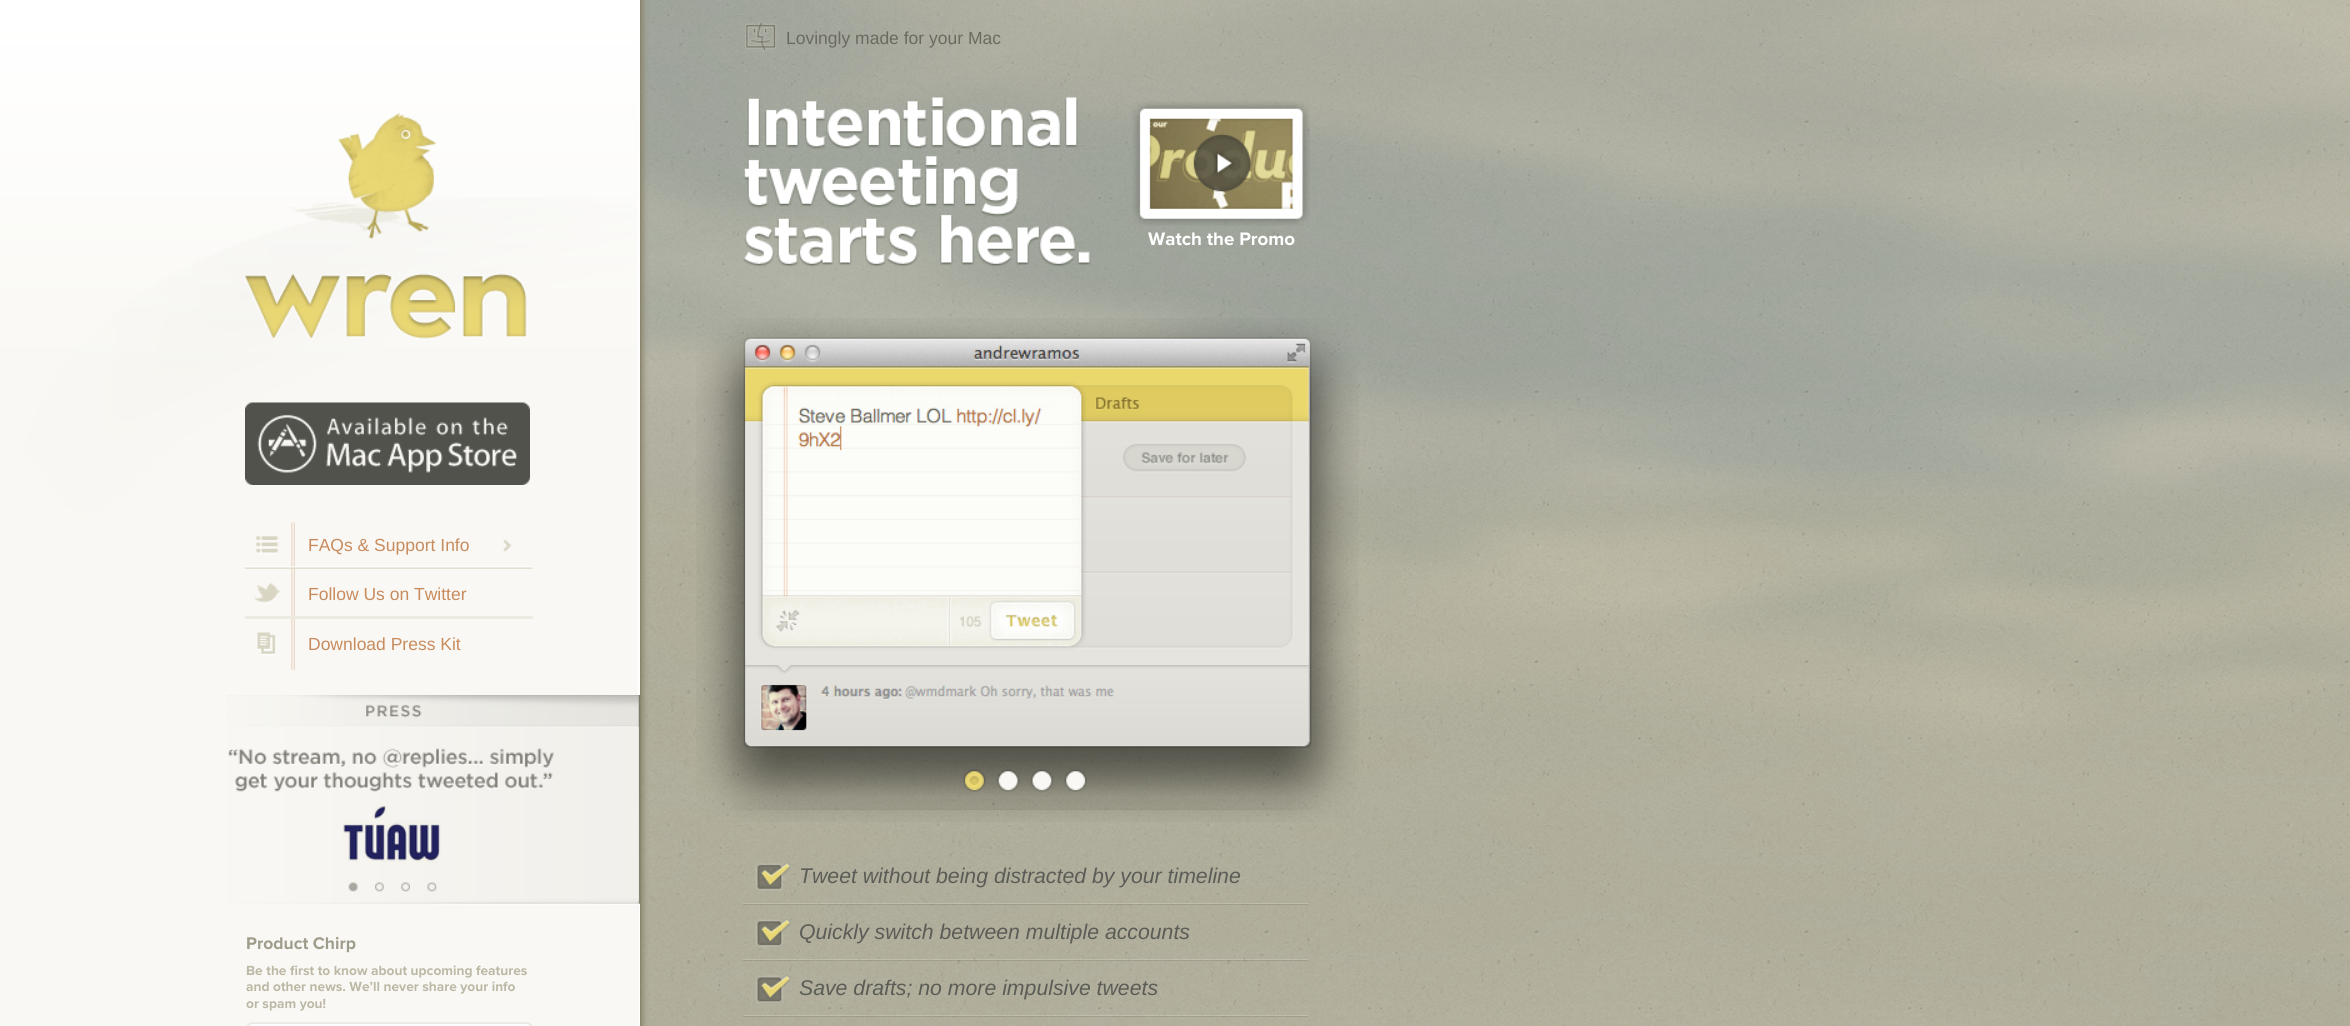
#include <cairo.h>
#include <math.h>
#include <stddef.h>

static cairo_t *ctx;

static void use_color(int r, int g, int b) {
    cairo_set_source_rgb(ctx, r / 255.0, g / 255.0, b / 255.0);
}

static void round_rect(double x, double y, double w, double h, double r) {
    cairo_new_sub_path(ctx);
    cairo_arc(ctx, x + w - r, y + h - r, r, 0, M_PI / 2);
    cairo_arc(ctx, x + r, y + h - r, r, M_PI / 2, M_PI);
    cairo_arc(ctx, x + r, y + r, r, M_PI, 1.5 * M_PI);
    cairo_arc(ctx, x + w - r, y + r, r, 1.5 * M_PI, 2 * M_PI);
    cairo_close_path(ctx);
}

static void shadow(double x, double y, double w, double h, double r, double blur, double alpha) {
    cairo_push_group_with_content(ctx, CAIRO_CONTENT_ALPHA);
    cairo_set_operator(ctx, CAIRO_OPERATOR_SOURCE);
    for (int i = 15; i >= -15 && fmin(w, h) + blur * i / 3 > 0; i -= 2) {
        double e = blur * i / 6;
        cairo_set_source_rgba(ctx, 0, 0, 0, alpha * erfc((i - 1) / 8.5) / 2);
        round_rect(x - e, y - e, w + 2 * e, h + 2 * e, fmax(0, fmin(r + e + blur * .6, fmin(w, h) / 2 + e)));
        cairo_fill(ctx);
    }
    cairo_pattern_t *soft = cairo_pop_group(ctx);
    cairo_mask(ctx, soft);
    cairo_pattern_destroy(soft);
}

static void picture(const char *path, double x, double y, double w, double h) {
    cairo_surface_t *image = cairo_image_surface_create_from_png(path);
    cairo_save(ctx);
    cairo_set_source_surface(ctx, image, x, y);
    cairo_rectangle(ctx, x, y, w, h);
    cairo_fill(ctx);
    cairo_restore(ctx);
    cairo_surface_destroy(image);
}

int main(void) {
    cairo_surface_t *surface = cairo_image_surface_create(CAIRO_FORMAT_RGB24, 2350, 1026);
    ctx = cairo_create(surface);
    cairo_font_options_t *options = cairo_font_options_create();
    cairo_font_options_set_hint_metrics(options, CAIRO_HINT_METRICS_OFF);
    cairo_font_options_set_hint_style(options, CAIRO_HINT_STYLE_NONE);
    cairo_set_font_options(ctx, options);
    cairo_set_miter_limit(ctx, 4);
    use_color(188, 184, 163);
    cairo_paint(ctx);
    picture("img1.png", 641, 0, 1709, 1026);
    picture("img2.png", 641, 0, 1709, 1026);
    use_color(137, 132, 108);
    shadow(0, -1, 643, 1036, 0, 3, 1);
    use_color(137, 132, 108);
    cairo_rectangle(ctx, 640, 0, 1, 1026);
    cairo_fill(ctx);
    use_color(249, 248, 244);
    cairo_rectangle(ctx, 0, 0, 639, 1026);
    cairo_fill(ctx);
    picture("img3.png", 0, 0, 639, 705);
    use_color(255, 255, 255);
    cairo_rectangle(ctx, 639, 0, 1, 1026);
    cairo_fill(ctx);
    picture("img4.png", 244, 112, 284, 228);
    picture("img5.png", 245, 402, 285, 83);
    picture("img6.png", 254, 522, 41, 148);
    picture("img7.png", 245, 539, 288, 30);
    cairo_select_font_face(ctx, "Liberation Sans", CAIRO_FONT_SLANT_NORMAL, CAIRO_FONT_WEIGHT_NORMAL);
    cairo_set_font_size(ctx, 17.5);
    use_color(200, 139, 93);
    cairo_move_to(ctx, 308, 551);
    cairo_show_text(ctx, "FAQs & Support Info");
    cairo_set_source_rgba(ctx, 0.918, 0.914, 0.875, 0.86);
    cairo_rectangle(ctx, 245, 616, 288, 3);
    cairo_fill(ctx);
    use_color(200, 139, 93);
    cairo_move_to(ctx, 308, 600);
    cairo_show_text(ctx, "Follow Us on Twitter");
    cairo_move_to(ctx, 308, 650);
    cairo_show_text(ctx, "Download Press Kit");
    picture("img8.png", 227, 695, 413, 210);
    picture("img9.png", 228, 727, 411, 175);
    picture("img10.png", 348, 882, 10, 10);
    picture("img11.png", 375, 882, 9, 10);
    picture("img12.png", 401, 882, 9, 10);
    picture("img13.png", 427, 882, 10, 10);
    cairo_select_font_face(ctx, "Proxima Nova", CAIRO_FONT_SLANT_NORMAL, CAIRO_FONT_WEIGHT_BOLD);
    use_color(160, 156, 140);
    cairo_move_to(ctx, 246, 949);
    cairo_show_text(ctx, "Product Chirp");
    cairo_set_font_size(ctx, 13.75);
    use_color(188, 184, 165);
    cairo_move_to(ctx, 246, 975);
    cairo_show_text(ctx, "Be the first to know about upcoming features");
    cairo_move_to(ctx, 246, 991);
    cairo_show_text(ctx, "and other news. We’ll never share your info");
    cairo_move_to(ctx, 246, 1008);
    cairo_show_text(ctx, "or spam you!");
    picture("img14.png", 246, 1022, 287, 4);
    picture("img15.png", 745, 21, 32, 31);
    cairo_select_font_face(ctx, "Liberation Sans", CAIRO_FONT_SLANT_NORMAL, CAIRO_FONT_WEIGHT_NORMAL);
    cairo_set_font_size(ctx, 17.5);
    use_color(106, 106, 96);
    cairo_move_to(ctx, 786, 44);
    cairo_show_text(ctx, "Lovingly made for your Mac");
    picture("img16.png", 743, 97, 348, 170);
    picture("img17.png", 1132, 101, 178, 125);
    cairo_select_font_face(ctx, "Proxima Nova", CAIRO_FONT_SLANT_NORMAL, CAIRO_FONT_WEIGHT_BOLD);
    cairo_set_font_size(ctx, 18.75);
    use_color(255, 255, 255);
    cairo_move_to(ctx, 1148, 245);
    cairo_show_text(ctx, "Watch the Promo");
    picture("img18.png", 731, 799, 588, 11);
    picture("img19.png", 696, 318, 663, 504);
    picture("img20.png", 963, 769, 23, 23);
    picture("img21.png", 997, 769, 23, 23);
    picture("img22.png", 1030, 769, 24, 23);
    picture("img23.png", 1064, 769, 23, 23);
    picture("img24.png", 755, 863, 36, 28);
    cairo_select_font_face(ctx, "Liberation Sans", CAIRO_FONT_SLANT_ITALIC, CAIRO_FONT_WEIGHT_NORMAL);
    cairo_set_font_size(ctx, 21.25);
    use_color(92, 92, 87);
    cairo_move_to(ctx, 799, 883);
    cairo_show_text(ctx, "Tweet without being distracted by your timeline");
    cairo_set_source_rgba(ctx, 1, 1, 1, 0.18);
    cairo_new_path(ctx);
    cairo_move_to(ctx, 743, 903);
    cairo_line_to(ctx, 743, 904);
    cairo_line_to(ctx, 1308, 904);
    cairo_line_to(ctx, 1308, 959);
    cairo_line_to(ctx, 1308, 903);
    cairo_close_path(ctx);
    cairo_fill(ctx);
    picture("img25.png", 755, 919, 36, 28);
    cairo_set_source_rgba(ctx, 0, 0, 0, 0.1);
    cairo_rectangle(ctx, 743, 904, 565, 1);
    cairo_fill(ctx);
    use_color(92, 92, 87);
    cairo_move_to(ctx, 799, 939);
    cairo_show_text(ctx, "Quickly switch between multiple accounts");
    cairo_set_source_rgba(ctx, 1, 1, 1, 0.18);
    cairo_new_path(ctx);
    cairo_move_to(ctx, 743, 959);
    cairo_line_to(ctx, 743, 960);
    cairo_line_to(ctx, 1308, 960);
    cairo_line_to(ctx, 1308, 1015);
    cairo_line_to(ctx, 1308, 959);
    cairo_close_path(ctx);
    cairo_fill(ctx);
    picture("img26.png", 755, 975, 36, 28);
    cairo_set_source_rgba(ctx, 0, 0, 0, 0.1);
    cairo_rectangle(ctx, 743, 960, 565, 1);
    cairo_fill(ctx);
    use_color(92, 92, 87);
    cairo_move_to(ctx, 799, 995);
    cairo_show_text(ctx, "Save drafts; no more impulsive tweets");
    cairo_set_source_rgba(ctx, 1, 1, 1, 0.18);
    cairo_new_path(ctx);
    cairo_move_to(ctx, 743, 1015);
    cairo_line_to(ctx, 743, 1016);
    cairo_line_to(ctx, 1308, 1016);
    cairo_line_to(ctx, 1308, 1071);
    cairo_line_to(ctx, 1308, 1015);
    cairo_close_path(ctx);
    cairo_fill(ctx);
    cairo_set_source_rgba(ctx, 0, 0, 0, 0.1);
    cairo_rectangle(ctx, 743, 1016, 565, 1);
    cairo_fill(ctx);
    cairo_surface_write_to_png(surface, "result.png");
    cairo_font_options_destroy(options);
    cairo_destroy(ctx);
    cairo_surface_destroy(surface);
    return 0;
}
